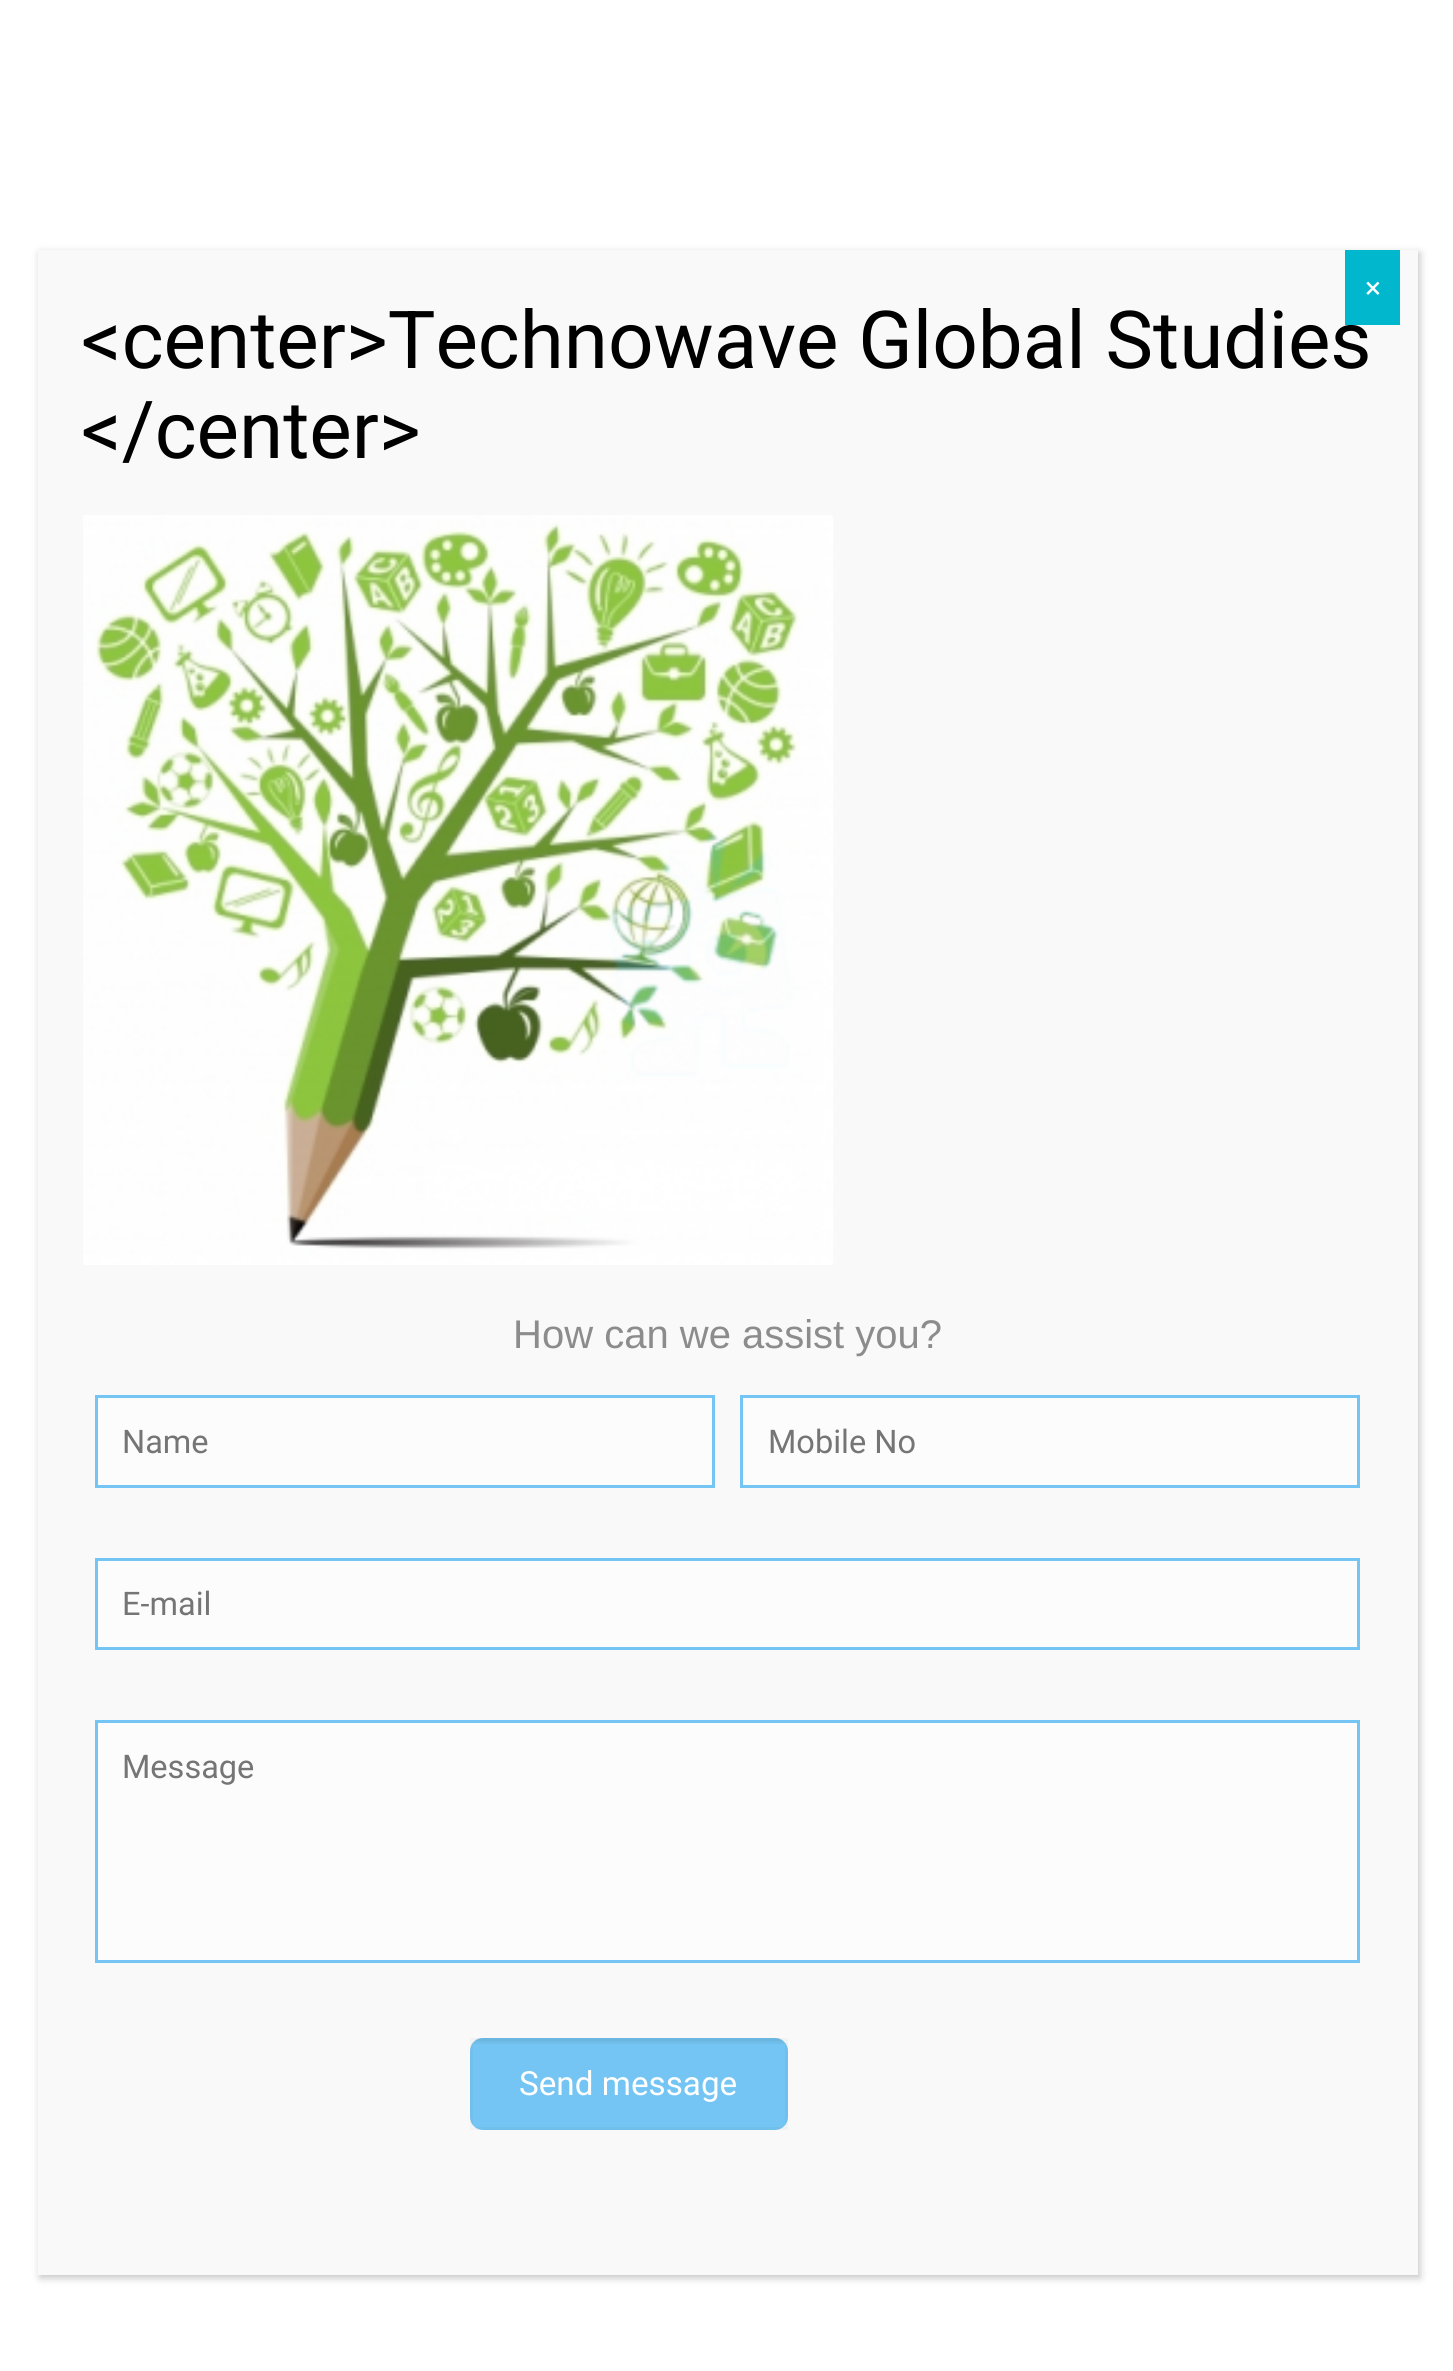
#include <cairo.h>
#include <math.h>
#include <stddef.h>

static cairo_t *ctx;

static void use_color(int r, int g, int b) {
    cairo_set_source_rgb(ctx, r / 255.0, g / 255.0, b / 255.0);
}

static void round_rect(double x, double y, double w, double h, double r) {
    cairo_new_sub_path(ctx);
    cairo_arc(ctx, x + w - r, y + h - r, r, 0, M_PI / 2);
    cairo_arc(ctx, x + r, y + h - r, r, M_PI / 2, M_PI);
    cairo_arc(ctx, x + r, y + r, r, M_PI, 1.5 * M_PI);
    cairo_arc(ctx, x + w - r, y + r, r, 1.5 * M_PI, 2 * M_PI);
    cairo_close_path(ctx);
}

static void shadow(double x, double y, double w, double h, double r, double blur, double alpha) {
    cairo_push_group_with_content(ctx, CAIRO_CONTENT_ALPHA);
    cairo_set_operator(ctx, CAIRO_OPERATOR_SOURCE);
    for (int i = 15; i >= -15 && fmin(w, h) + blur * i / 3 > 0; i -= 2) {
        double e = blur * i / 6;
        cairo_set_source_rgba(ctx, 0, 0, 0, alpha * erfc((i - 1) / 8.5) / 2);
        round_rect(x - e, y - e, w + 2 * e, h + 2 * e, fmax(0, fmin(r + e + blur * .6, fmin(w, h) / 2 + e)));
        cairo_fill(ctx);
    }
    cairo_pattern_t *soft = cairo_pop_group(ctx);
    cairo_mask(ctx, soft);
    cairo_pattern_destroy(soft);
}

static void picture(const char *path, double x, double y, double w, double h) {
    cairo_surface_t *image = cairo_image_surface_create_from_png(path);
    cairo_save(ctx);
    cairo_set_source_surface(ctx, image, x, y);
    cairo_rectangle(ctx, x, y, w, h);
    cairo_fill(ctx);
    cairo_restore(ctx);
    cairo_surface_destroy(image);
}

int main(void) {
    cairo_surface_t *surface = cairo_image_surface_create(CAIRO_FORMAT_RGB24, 1453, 2371);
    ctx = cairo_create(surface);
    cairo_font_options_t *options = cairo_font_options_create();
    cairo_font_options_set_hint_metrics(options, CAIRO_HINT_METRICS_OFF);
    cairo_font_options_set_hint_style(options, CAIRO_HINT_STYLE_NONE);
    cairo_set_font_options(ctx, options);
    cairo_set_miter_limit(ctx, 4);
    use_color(255, 255, 255);
    cairo_paint(ctx);
    use_color(2, 2, 2);
    shadow(40, 253, 1380, 2025, 0, 4, 0.23);
    use_color(249, 249, 249);
    cairo_rectangle(ctx, 38, 250, 1380, 2025);
    cairo_fill(ctx);
    cairo_select_font_face(ctx, "Roboto", CAIRO_FONT_SLANT_NORMAL, CAIRO_FONT_WEIGHT_NORMAL);
    cairo_set_font_size(ctx, 80);
    use_color(0, 0, 0);
    cairo_move_to(ctx, 81, 368);
    cairo_show_text(ctx, "<center>Technowave Global Studies");
    use_color(0, 183, 205);
    cairo_rectangle(ctx, 1345, 250, 55, 75);
    cairo_fill(ctx);
    cairo_set_font_size(ctx, 30);
    use_color(255, 255, 255);
    cairo_move_to(ctx, 1365, 298);
    cairo_show_text(ctx, "×");
    cairo_set_font_size(ctx, 80);
    use_color(0, 0, 0);
    cairo_move_to(ctx, 81, 458);
    cairo_show_text(ctx, "</center>");
    picture("img1.png", 83, 515, 750, 750);
    cairo_select_font_face(ctx, "Liberation Sans", CAIRO_FONT_SLANT_NORMAL, CAIRO_FONT_WEIGHT_NORMAL);
    cairo_set_font_size(ctx, 40);
    use_color(140, 140, 140);
    cairo_move_to(ctx, 513, 1348);
    cairo_show_text(ctx, "How can we assist you?");
    use_color(252, 252, 252);
    cairo_rectangle(ctx, 96.5, 1396.5, 617, 90);
    cairo_fill_preserve(ctx);
    use_color(116, 197, 243);
    cairo_set_line_width(ctx, 3);
    cairo_stroke(ctx);
    cairo_select_font_face(ctx, "Roboto", CAIRO_FONT_SLANT_NORMAL, CAIRO_FONT_WEIGHT_NORMAL);
    cairo_set_font_size(ctx, 32.5);
    use_color(117, 117, 117);
    cairo_move_to(ctx, 122, 1453);
    cairo_show_text(ctx, "Name");
    use_color(252, 252, 252);
    cairo_rectangle(ctx, 741.5, 1396.5, 617, 90);
    cairo_fill_preserve(ctx);
    use_color(116, 197, 243);
    cairo_stroke(ctx);
    use_color(117, 117, 117);
    cairo_move_to(ctx, 768, 1453);
    cairo_show_text(ctx, "Mobile No");
    use_color(252, 252, 252);
    cairo_rectangle(ctx, 96.5, 1559.5, 1262, 89);
    cairo_fill_preserve(ctx);
    use_color(116, 197, 243);
    cairo_stroke(ctx);
    use_color(117, 117, 117);
    cairo_move_to(ctx, 122, 1615);
    cairo_show_text(ctx, "E-mail");
    use_color(252, 252, 252);
    cairo_rectangle(ctx, 96.5, 1721.5, 1262, 240);
    cairo_fill_preserve(ctx);
    use_color(116, 197, 243);
    cairo_stroke(ctx);
    use_color(117, 117, 117);
    cairo_move_to(ctx, 122, 1778);
    cairo_show_text(ctx, "Message");
    use_color(116, 197, 243);
    round_rect(470, 2038, 318, 92, 13);
    cairo_fill(ctx);
    picture("img2.png", 472, 2038, 313, 6);
    cairo_rectangle(ctx, 471.5, 2039.5, 315, 89);
    cairo_set_source_rgba(ctx, 0, 0, 0, 0.03);
    cairo_stroke(ctx);
    cairo_set_font_size(ctx, 33.25);
    use_color(255, 255, 255);
    cairo_move_to(ctx, 519, 2095);
    cairo_show_text(ctx, "Send message");
    cairo_surface_write_to_png(surface, "result.png");
    cairo_font_options_destroy(options);
    cairo_destroy(ctx);
    cairo_surface_destroy(surface);
    return 0;
}
